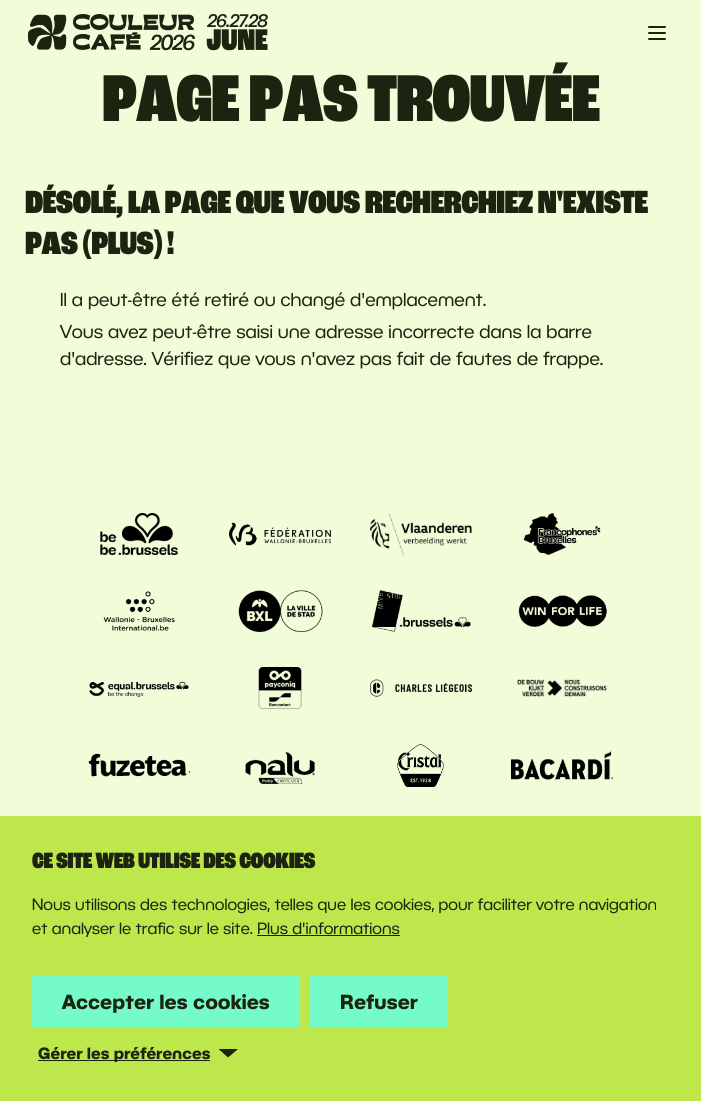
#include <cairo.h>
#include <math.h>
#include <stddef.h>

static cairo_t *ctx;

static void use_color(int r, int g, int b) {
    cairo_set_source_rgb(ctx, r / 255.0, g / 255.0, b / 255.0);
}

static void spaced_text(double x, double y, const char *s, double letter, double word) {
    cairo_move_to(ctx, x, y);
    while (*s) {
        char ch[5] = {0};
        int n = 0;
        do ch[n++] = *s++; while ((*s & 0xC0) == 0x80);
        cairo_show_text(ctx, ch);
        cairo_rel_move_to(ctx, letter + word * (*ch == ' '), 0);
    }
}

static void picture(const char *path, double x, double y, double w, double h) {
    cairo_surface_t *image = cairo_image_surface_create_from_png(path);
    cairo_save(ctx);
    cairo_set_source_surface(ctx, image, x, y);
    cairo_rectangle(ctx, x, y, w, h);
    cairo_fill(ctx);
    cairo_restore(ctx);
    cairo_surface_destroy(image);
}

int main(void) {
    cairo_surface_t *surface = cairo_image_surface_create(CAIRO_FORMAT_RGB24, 701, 1101);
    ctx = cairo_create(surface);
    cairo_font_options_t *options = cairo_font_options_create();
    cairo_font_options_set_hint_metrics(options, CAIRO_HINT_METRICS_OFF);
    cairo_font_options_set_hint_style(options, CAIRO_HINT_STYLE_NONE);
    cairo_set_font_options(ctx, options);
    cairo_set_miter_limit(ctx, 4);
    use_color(241, 252, 217);
    cairo_paint(ctx);
    picture("img1.png", 28, 14, 240, 37);
    picture("img2.png", 648, 26, 18, 14);
    cairo_select_font_face(ctx, "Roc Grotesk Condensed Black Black", CAIRO_FONT_SLANT_NORMAL, CAIRO_FONT_WEIGHT_NORMAL);
    cairo_set_font_size(ctx, 69.5);
    use_color(28, 35, 16);
    spaced_text(102, 121, "PAGE PAS TROUVÉE", -1.4, 0);
    cairo_set_font_size(ctx, 33.75);
    spaced_text(25, 213, "DÉSOLÉ, LA PAGE QUE VOUS RECHERCHIEZ N'EXISTE", -0.7, 0);
    spaced_text(25, 254, "PAS (PLUS) !", -0.7, 0);
    cairo_select_font_face(ctx, "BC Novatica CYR", CAIRO_FONT_SLANT_NORMAL, CAIRO_FONT_WEIGHT_NORMAL);
    cairo_set_font_size(ctx, 18.25);
    cairo_move_to(ctx, 60, 306);
    cairo_show_text(ctx, "Il a peut-être été retiré ou changé d'emplacement.");
    cairo_move_to(ctx, 60, 338);
    cairo_show_text(ctx, "Vous avez peut-être saisi une adresse incorrecte dans la barre");
    cairo_move_to(ctx, 60, 365);
    cairo_show_text(ctx, "d'adresse. Vérifiez que vous n'avez pas fait de fautes de frappe.");
    picture("img3.png", 100, 513, 78, 42);
    picture("img4.png", 229, 522, 102, 24);
    picture("img5.png", 370, 513, 102, 42);
    picture("img6.png", 523, 513, 78, 42);
    picture("img7.png", 103, 591, 72, 40);
    picture("img8.png", 238, 590, 85, 42);
    picture("img9.png", 371, 590, 100, 42);
    picture("img10.png", 518, 595, 89, 32);
    picture("img11.png", 89, 681, 100, 16);
    picture("img12.png", 258, 667, 44, 42);
    picture("img13.png", 370, 679, 102, 18);
    picture("img14.png", 517, 679, 90, 18);
    picture("img15.png", 88, 753, 102, 24);
    picture("img16.png", 245, 752, 70, 32);
    picture("img17.png", 397, 744, 47, 43);
    picture("img18.png", 511, 751, 102, 29);
    use_color(189, 231, 75);
    cairo_rectangle(ctx, 0, 816, 701, 285);
    cairo_fill(ctx);
    cairo_select_font_face(ctx, "Roc Grotesk Condensed Black Black", CAIRO_FONT_SLANT_NORMAL, CAIRO_FONT_WEIGHT_NORMAL);
    cairo_set_font_size(ctx, 23.25);
    use_color(28, 35, 16);
    spaced_text(32, 868, "CE SITE WEB UTILISE DES COOKIES", -0.5, 0);
    cairo_select_font_face(ctx, "BC Novatica CYR", CAIRO_FONT_SLANT_NORMAL, CAIRO_FONT_WEIGHT_NORMAL);
    cairo_set_font_size(ctx, 16);
    cairo_move_to(ctx, 32, 910);
    cairo_show_text(ctx, "Nous utilisons des technologies, telles que les cookies, pour faciliter votre navigation");
    cairo_move_to(ctx, 32, 934);
    cairo_show_text(ctx, "et analyser le trafic sur le site. Plus d'informations");
    cairo_rectangle(ctx, 257, 935, 143, 1);
    cairo_fill(ctx);
    use_color(116, 251, 201);
    cairo_rectangle(ctx, 32, 975, 268, 52);
    cairo_fill(ctx);
    cairo_select_font_face(ctx, "BC Novatica CYR", CAIRO_FONT_SLANT_NORMAL, CAIRO_FONT_WEIGHT_BOLD);
    cairo_set_font_size(ctx, 20);
    use_color(28, 35, 16);
    cairo_move_to(ctx, 62, 1009);
    cairo_show_text(ctx, "Accepter les cookies");
    use_color(116, 251, 201);
    cairo_rectangle(ctx, 310, 975, 138, 52);
    cairo_fill(ctx);
    use_color(28, 35, 16);
    cairo_move_to(ctx, 340, 1009);
    cairo_show_text(ctx, "Refuser");
    cairo_rectangle(ctx, 38, 1060, 172, 1);
    cairo_fill(ctx);
    cairo_set_font_size(ctx, 16);
    cairo_move_to(ctx, 38, 1059);
    cairo_show_text(ctx, "Gérer les préférences");
    cairo_new_path(ctx);
    cairo_move_to(ctx, 228, 1057.5);
    cairo_line_to(ctx, 218.5, 1049);
    cairo_line_to(ctx, 238, 1049);
    cairo_close_path(ctx);
    cairo_fill(ctx);
    cairo_surface_write_to_png(surface, "result.png");
    cairo_font_options_destroy(options);
    cairo_destroy(ctx);
    cairo_surface_destroy(surface);
    return 0;
}
